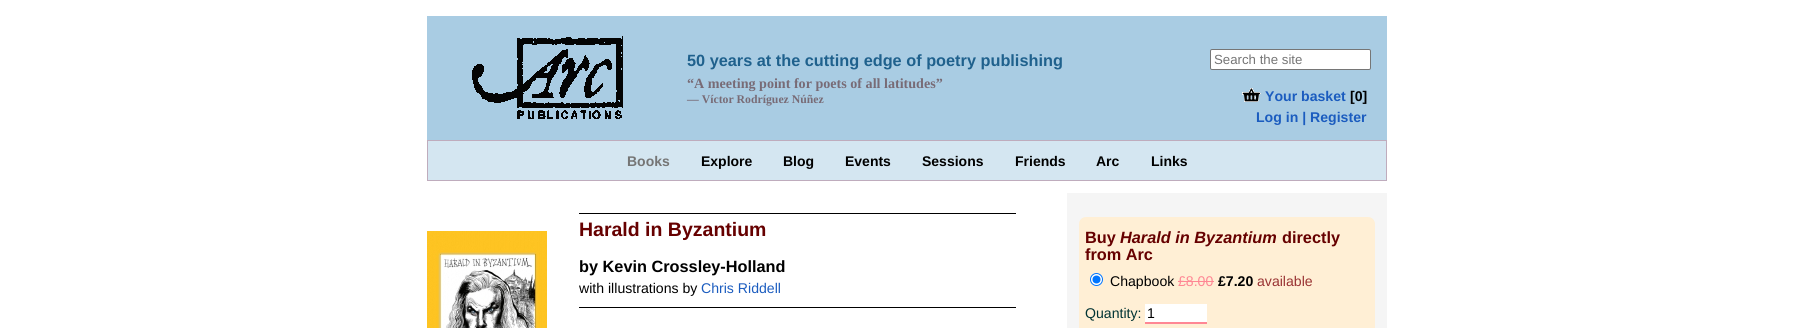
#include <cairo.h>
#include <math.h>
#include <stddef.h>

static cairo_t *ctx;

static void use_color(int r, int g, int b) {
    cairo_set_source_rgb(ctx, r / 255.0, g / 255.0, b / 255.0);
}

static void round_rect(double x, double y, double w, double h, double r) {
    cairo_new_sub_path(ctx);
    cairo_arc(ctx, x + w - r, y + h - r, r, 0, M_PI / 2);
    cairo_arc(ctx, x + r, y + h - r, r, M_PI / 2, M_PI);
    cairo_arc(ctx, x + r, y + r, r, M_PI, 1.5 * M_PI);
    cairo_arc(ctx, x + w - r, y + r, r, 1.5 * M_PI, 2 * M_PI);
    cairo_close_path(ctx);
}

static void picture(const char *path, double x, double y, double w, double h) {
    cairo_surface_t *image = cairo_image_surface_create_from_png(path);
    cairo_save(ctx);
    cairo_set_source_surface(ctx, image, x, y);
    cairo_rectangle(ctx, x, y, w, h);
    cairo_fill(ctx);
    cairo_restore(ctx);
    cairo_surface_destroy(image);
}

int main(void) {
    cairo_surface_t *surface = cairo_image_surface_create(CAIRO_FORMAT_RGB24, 1814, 328);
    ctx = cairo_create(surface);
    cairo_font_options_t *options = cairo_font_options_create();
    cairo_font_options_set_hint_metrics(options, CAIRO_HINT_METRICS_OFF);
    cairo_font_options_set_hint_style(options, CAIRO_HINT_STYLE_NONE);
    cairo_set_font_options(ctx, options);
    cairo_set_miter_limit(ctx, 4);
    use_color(255, 255, 255);
    cairo_paint(ctx);
    use_color(169, 204, 227);
    cairo_rectangle(ctx, 427, 16, 960, 124);
    cairo_fill(ctx);
    picture("img1.png", 472, 36, 151, 83);
    cairo_select_font_face(ctx, "Liberation Sans", CAIRO_FONT_SLANT_NORMAL, CAIRO_FONT_WEIGHT_BOLD);
    cairo_set_font_size(ctx, 16.3);
    use_color(31, 97, 141);
    cairo_move_to(ctx, 687, 66);
    cairo_show_text(ctx, "50 years at the cutting edge of poetry publishing");
    cairo_select_font_face(ctx, "Liberation Serif", CAIRO_FONT_SLANT_NORMAL, CAIRO_FONT_WEIGHT_BOLD);
    cairo_set_font_size(ctx, 14.1);
    use_color(120, 107, 118);
    cairo_move_to(ctx, 687, 88);
    cairo_show_text(ctx, "“A meeting point for poets of all latitudes”");
    cairo_set_font_size(ctx, 11.75);
    cairo_move_to(ctx, 687, 103);
    cairo_show_text(ctx, "— Víctor Rodríguez Núñez");
    use_color(255, 255, 255);
    round_rect(1210.5, 49.5, 160, 20, 1.5);
    cairo_fill_preserve(ctx);
    use_color(118, 118, 118);
    cairo_set_line_width(ctx, 1);
    cairo_stroke(ctx);
    cairo_select_font_face(ctx, "Liberation Sans", CAIRO_FONT_SLANT_NORMAL, CAIRO_FONT_WEIGHT_NORMAL);
    cairo_set_font_size(ctx, 13.25);
    use_color(117, 117, 117);
    cairo_move_to(ctx, 1214, 64);
    cairo_show_text(ctx, "Search the site");
    picture("img2.png", 1242, 88, 19, 14);
    cairo_select_font_face(ctx, "Liberation Sans", CAIRO_FONT_SLANT_NORMAL, CAIRO_FONT_WEIGHT_BOLD);
    cairo_set_font_size(ctx, 14.1);
    use_color(27, 92, 191);
    cairo_move_to(ctx, 1265, 101);
    cairo_show_text(ctx, "Your basket");
    use_color(0, 0, 0);
    cairo_move_to(ctx, 1350, 101);
    cairo_show_text(ctx, "[0]");
    use_color(27, 92, 191);
    cairo_move_to(ctx, 1256, 122);
    cairo_show_text(ctx, "Log in | Register");
    use_color(212, 230, 241);
    cairo_rectangle(ctx, 427.5, 140.5, 959, 40);
    cairo_fill_preserve(ctx);
    use_color(191, 172, 189);
    cairo_stroke(ctx);
    cairo_set_font_size(ctx, 14);
    use_color(117, 117, 117);
    cairo_move_to(ctx, 627, 166);
    cairo_show_text(ctx, "Books");
    use_color(0, 0, 0);
    cairo_move_to(ctx, 701, 166);
    cairo_show_text(ctx, "Explore");
    cairo_move_to(ctx, 783, 166);
    cairo_show_text(ctx, "Blog");
    cairo_move_to(ctx, 845, 166);
    cairo_show_text(ctx, "Events");
    cairo_move_to(ctx, 922, 166);
    cairo_show_text(ctx, "Sessions");
    cairo_move_to(ctx, 1015, 166);
    cairo_show_text(ctx, "Friends");
    cairo_move_to(ctx, 1096, 166);
    cairo_show_text(ctx, "Arc");
    cairo_move_to(ctx, 1151, 166);
    cairo_show_text(ctx, "Links");
    picture("img3.png", 427, 231, 120, 97);
    cairo_rectangle(ctx, 579, 213, 437, 1);
    cairo_fill(ctx);
    cairo_rectangle(ctx, 579, 307, 437, 1);
    cairo_fill(ctx);
    cairo_set_font_size(ctx, 19.5);
    use_color(102, 0, 0);
    cairo_move_to(ctx, 579, 236);
    cairo_show_text(ctx, "Harald in Byzantium");
    cairo_set_font_size(ctx, 16.3);
    use_color(0, 0, 0);
    cairo_move_to(ctx, 579, 272);
    cairo_show_text(ctx, "by Kevin Crossley-Holland");
    cairo_select_font_face(ctx, "Liberation Sans", CAIRO_FONT_SLANT_NORMAL, CAIRO_FONT_WEIGHT_NORMAL);
    cairo_set_font_size(ctx, 14.1);
    cairo_move_to(ctx, 579, 293);
    cairo_show_text(ctx, "with illustrations by");
    use_color(27, 92, 191);
    cairo_move_to(ctx, 701, 293);
    cairo_show_text(ctx, "Chris Riddell");
    use_color(245, 245, 245);
    cairo_rectangle(ctx, 1067, 193, 320, 135);
    cairo_fill(ctx);
    use_color(255, 239, 213);
    round_rect(1079, 217, 296, 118, 7);
    cairo_fill(ctx);
    cairo_select_font_face(ctx, "Liberation Sans", CAIRO_FONT_SLANT_NORMAL, CAIRO_FONT_WEIGHT_BOLD);
    cairo_set_font_size(ctx, 16.3);
    use_color(102, 0, 0);
    cairo_move_to(ctx, 1085, 243);
    cairo_show_text(ctx, "Buy");
    cairo_select_font_face(ctx, "Liberation Sans", CAIRO_FONT_SLANT_ITALIC, CAIRO_FONT_WEIGHT_BOLD);
    cairo_move_to(ctx, 1120, 243);
    cairo_show_text(ctx, "Harald in Byzantium");
    cairo_select_font_face(ctx, "Liberation Sans", CAIRO_FONT_SLANT_NORMAL, CAIRO_FONT_WEIGHT_BOLD);
    cairo_move_to(ctx, 1282, 243);
    cairo_show_text(ctx, "directly");
    cairo_move_to(ctx, 1085, 260);
    cairo_show_text(ctx, "from Arc");
    use_color(255, 255, 255);
    cairo_new_path(ctx);
    cairo_arc(ctx, 1096.5, 279.5, 6, 0, 2 * M_PI);
    cairo_fill_preserve(ctx);
    use_color(0, 117, 255);
    cairo_stroke(ctx);
    cairo_arc(ctx, 1096.5, 279.5, 4, 0, 2 * M_PI);
    cairo_fill(ctx);
    cairo_select_font_face(ctx, "Liberation Sans", CAIRO_FONT_SLANT_NORMAL, CAIRO_FONT_WEIGHT_NORMAL);
    cairo_set_font_size(ctx, 14.1);
    use_color(0, 0, 0);
    cairo_move_to(ctx, 1110, 286);
    cairo_show_text(ctx, "Chapbook");
    use_color(255, 135, 148);
    cairo_move_to(ctx, 1178, 286);
    cairo_show_text(ctx, "£8.00");
    cairo_rectangle(ctx, 1178, 281, 36, 1);
    cairo_fill(ctx);
    cairo_select_font_face(ctx, "Liberation Sans", CAIRO_FONT_SLANT_NORMAL, CAIRO_FONT_WEIGHT_BOLD);
    use_color(0, 0, 0);
    cairo_move_to(ctx, 1218, 286);
    cairo_show_text(ctx, "£7.20");
    cairo_select_font_face(ctx, "Liberation Sans", CAIRO_FONT_SLANT_NORMAL, CAIRO_FONT_WEIGHT_NORMAL);
    use_color(153, 51, 51);
    cairo_move_to(ctx, 1257, 286);
    cairo_show_text(ctx, "available");
    use_color(0, 51, 51);
    cairo_move_to(ctx, 1085, 318);
    cairo_show_text(ctx, "Quantity:");
    use_color(255, 255, 255);
    cairo_rectangle(ctx, 1145, 304, 62, 18);
    cairo_fill(ctx);
    use_color(255, 135, 148);
    cairo_rectangle(ctx, 1145, 322, 62, 2);
    cairo_fill(ctx);
    use_color(0, 0, 0);
    cairo_move_to(ctx, 1147, 318);
    cairo_show_text(ctx, "1");
    cairo_surface_write_to_png(surface, "result.png");
    cairo_font_options_destroy(options);
    cairo_destroy(ctx);
    cairo_surface_destroy(surface);
    return 0;
}
